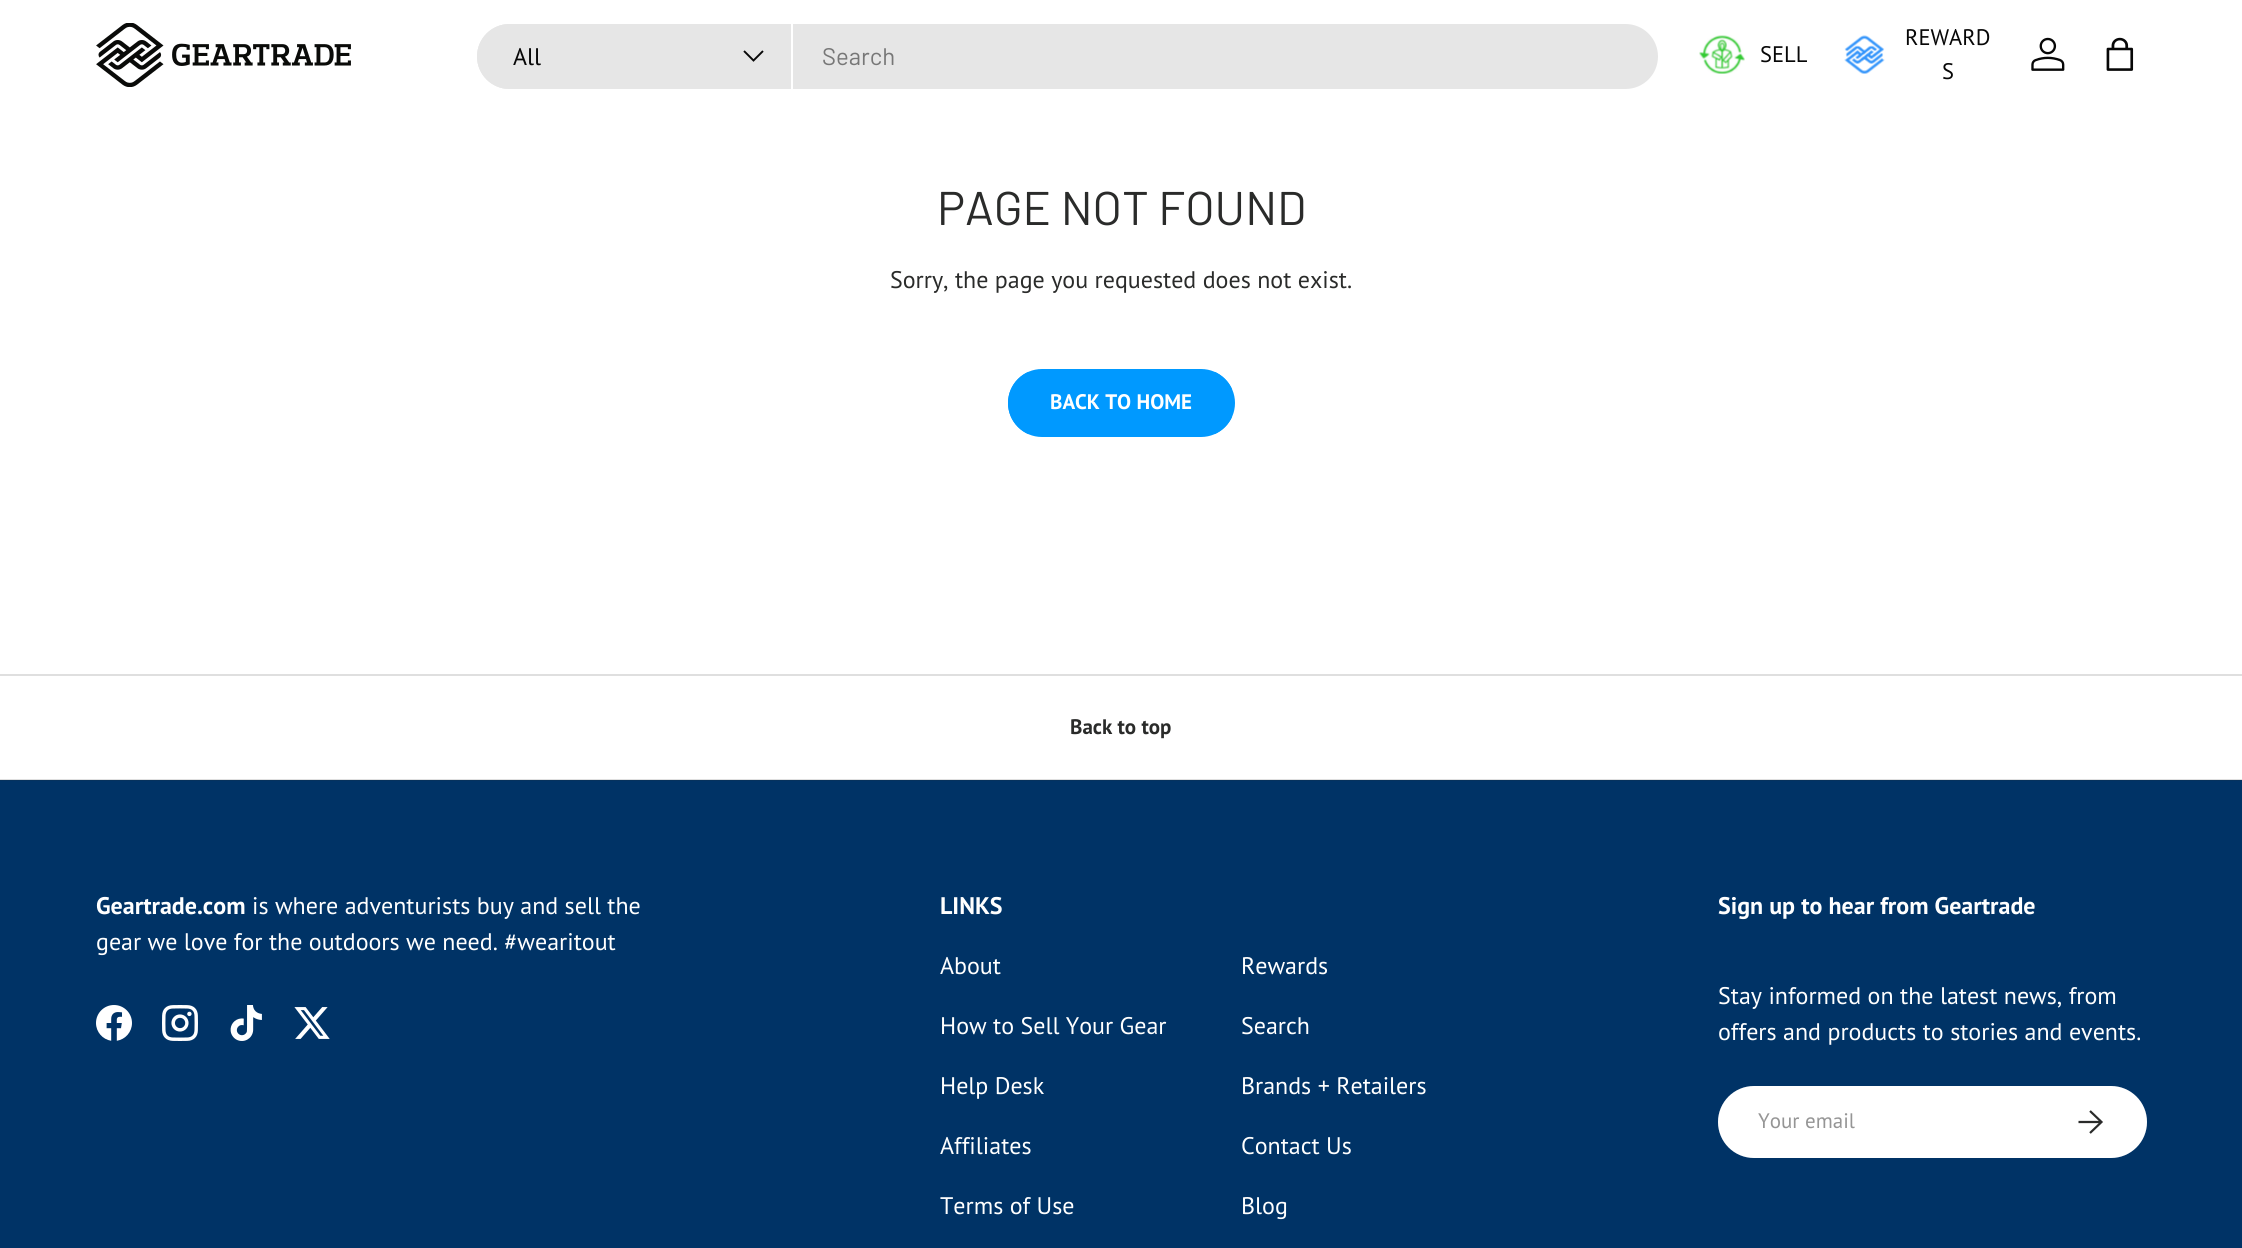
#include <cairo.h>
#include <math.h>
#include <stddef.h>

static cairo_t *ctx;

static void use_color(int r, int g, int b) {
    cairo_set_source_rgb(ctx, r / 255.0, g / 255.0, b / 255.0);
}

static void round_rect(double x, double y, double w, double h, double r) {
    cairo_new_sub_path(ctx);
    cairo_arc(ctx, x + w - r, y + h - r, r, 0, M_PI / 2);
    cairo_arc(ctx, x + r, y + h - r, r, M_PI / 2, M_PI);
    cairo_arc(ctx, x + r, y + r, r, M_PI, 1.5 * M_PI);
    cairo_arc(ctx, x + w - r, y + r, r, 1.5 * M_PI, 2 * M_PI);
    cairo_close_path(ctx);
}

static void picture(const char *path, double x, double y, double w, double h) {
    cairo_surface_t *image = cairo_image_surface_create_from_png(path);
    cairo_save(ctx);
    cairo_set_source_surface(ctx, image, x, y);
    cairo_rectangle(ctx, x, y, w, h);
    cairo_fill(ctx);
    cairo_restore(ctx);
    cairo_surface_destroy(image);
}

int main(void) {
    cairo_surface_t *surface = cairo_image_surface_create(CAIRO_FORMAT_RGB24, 2242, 1248);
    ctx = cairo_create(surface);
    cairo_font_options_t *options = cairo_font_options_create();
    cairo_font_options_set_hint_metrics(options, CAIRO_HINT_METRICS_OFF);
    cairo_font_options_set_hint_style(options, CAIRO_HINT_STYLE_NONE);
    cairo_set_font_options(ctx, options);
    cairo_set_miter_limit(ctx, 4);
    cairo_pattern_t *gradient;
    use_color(255, 255, 255);
    cairo_paint(ctx);
    use_color(223, 223, 223);
    cairo_rectangle(ctx, 0, 779, 2242, 1);
    cairo_fill(ctx);
    picture("img1.png", 96, 23, 255, 64);
    use_color(230, 230, 230);
    round_rect(477, 24, 1181, 65, 32.5);
    cairo_fill(ctx);
    cairo_new_path(ctx);
    cairo_move_to(ctx, 509.5, 24);
    cairo_line_to(ctx, 792, 24);
    cairo_line_to(ctx, 792, 89);
    cairo_line_to(ctx, 509.5, 89);
    cairo_curve_to(ctx, 491.5, 89, 477, 74.5, 477, 56.5);
    cairo_curve_to(ctx, 477, 38.5, 491.5, 24, 509.5, 24);
    cairo_close_path(ctx);
    cairo_fill(ctx);
    use_color(255, 255, 255);
    cairo_rectangle(ctx, 791, 24, 2, 65);
    cairo_fill(ctx);
    cairo_select_font_face(ctx, "PT Sans", CAIRO_FONT_SLANT_NORMAL, CAIRO_FONT_WEIGHT_NORMAL);
    cairo_set_font_size(ctx, 24);
    use_color(7, 7, 7);
    cairo_move_to(ctx, 513, 65);
    cairo_show_text(ctx, "All");
    cairo_new_path(ctx);
    cairo_move_to(ctx, 763, 51);
    cairo_line_to(ctx, 753.5, 60.5);
    cairo_line_to(ctx, 744, 51);
    cairo_set_line_width(ctx, 1.9);
    cairo_stroke(ctx);
    cairo_select_font_face(ctx, "Barlow", CAIRO_FONT_SLANT_NORMAL, CAIRO_FONT_WEIGHT_NORMAL);
    use_color(119, 119, 119);
    cairo_move_to(ctx, 822, 65);
    cairo_show_text(ctx, "Search");
    picture("img2.png", 1699, 35, 46, 39);
    cairo_select_font_face(ctx, "PT Sans", CAIRO_FONT_SLANT_NORMAL, CAIRO_FONT_WEIGHT_NORMAL);
    cairo_set_font_size(ctx, 22.5);
    use_color(7, 7, 7);
    cairo_move_to(ctx, 1760, 62);
    cairo_show_text(ctx, "SELL");
    picture("img3.png", 1844, 35, 41, 39);
    cairo_move_to(ctx, 1905, 45);
    cairo_show_text(ctx, "REWARD");
    cairo_move_to(ctx, 1942, 79);
    cairo_show_text(ctx, "S");
    picture("img4.png", 2031, 37, 34, 34);
    picture("img5.png", 2106, 37, 28, 34);
    cairo_select_font_face(ctx, "Barlow", CAIRO_FONT_SLANT_NORMAL, CAIRO_FONT_WEIGHT_NORMAL);
    cairo_set_font_size(ctx, 47.25);
    use_color(42, 43, 42);
    cairo_move_to(ctx, 937, 225);
    cairo_show_text(ctx, "PAGE NOT FOUND");
    cairo_select_font_face(ctx, "PT Sans", CAIRO_FONT_SLANT_NORMAL, CAIRO_FONT_WEIGHT_NORMAL);
    cairo_set_font_size(ctx, 24);
    cairo_move_to(ctx, 890, 288);
    cairo_show_text(ctx, "Sorry, the page you requested does not exist.");
    cairo_save(ctx);
    round_rect(1008, 369, 227, 68, 34);
    cairo_clip(ctx);
    gradient = cairo_pattern_create_linear(582, 323, 1219, 482);
    cairo_pattern_add_color_stop_rgba(gradient, 0.6, 0.208, 0.682, 1, 1);
    cairo_pattern_add_color_stop_rgba(gradient, 0.6, 0, 0.6, 1, 1);
    cairo_pattern_add_color_stop_rgba(gradient, 1, 0, 0.6, 1, 1);
    cairo_set_source(ctx, gradient);
    cairo_pattern_destroy(gradient);
    cairo_rectangle(ctx, 1008, 372, 224, 62);
    cairo_fill(ctx);
    cairo_restore(ctx);
    round_rect(1009.5, 370.5, 224, 65, 32.5);
    use_color(0, 153, 255);
    cairo_set_line_width(ctx, 3);
    cairo_stroke(ctx);
    cairo_select_font_face(ctx, "PT Sans", CAIRO_FONT_SLANT_NORMAL, CAIRO_FONT_WEIGHT_BOLD);
    cairo_set_font_size(ctx, 21);
    use_color(255, 255, 255);
    cairo_move_to(ctx, 1050, 409);
    cairo_show_text(ctx, "BACK TO HOME");
    use_color(223, 223, 223);
    cairo_rectangle(ctx, 0, 674, 2242, 2);
    cairo_fill(ctx);
    use_color(42, 43, 42);
    cairo_move_to(ctx, 1070, 734);
    cairo_show_text(ctx, "Back to top");
    use_color(0, 51, 102);
    cairo_rectangle(ctx, 0, 781, 2242, 467);
    cairo_fill(ctx);
    use_color(6, 50, 93);
    cairo_rectangle(ctx, 0, 780, 2242, 1);
    cairo_fill(ctx);
    cairo_set_font_size(ctx, 24);
    use_color(255, 255, 255);
    cairo_move_to(ctx, 96, 914);
    cairo_show_text(ctx, "Geartrade.com");
    cairo_select_font_face(ctx, "PT Sans", CAIRO_FONT_SLANT_NORMAL, CAIRO_FONT_WEIGHT_NORMAL);
    cairo_move_to(ctx, 252, 914);
    cairo_show_text(ctx, "is where adventurists buy and sell the");
    cairo_move_to(ctx, 96, 950);
    cairo_show_text(ctx, "gear we love for the outdoors we need. #wearitout");
    picture("img6.png", 96, 1005, 36, 36);
    picture("img7.png", 162, 1005, 36, 36);
    picture("img8.png", 230, 1005, 32, 36);
    picture("img9.png", 294, 1007, 36, 32);
    cairo_select_font_face(ctx, "PT Sans", CAIRO_FONT_SLANT_NORMAL, CAIRO_FONT_WEIGHT_BOLD);
    cairo_move_to(ctx, 940, 914);
    cairo_show_text(ctx, "LINKS");
    cairo_select_font_face(ctx, "PT Sans", CAIRO_FONT_SLANT_NORMAL, CAIRO_FONT_WEIGHT_NORMAL);
    cairo_move_to(ctx, 940, 974);
    cairo_show_text(ctx, "About");
    cairo_move_to(ctx, 1241, 974);
    cairo_show_text(ctx, "Rewards");
    cairo_move_to(ctx, 940, 1034);
    cairo_show_text(ctx, "How to Sell Your Gear");
    cairo_move_to(ctx, 1241, 1034);
    cairo_show_text(ctx, "Search");
    cairo_move_to(ctx, 940, 1094);
    cairo_show_text(ctx, "Help Desk");
    cairo_move_to(ctx, 1241, 1094);
    cairo_show_text(ctx, "Brands + Retailers");
    cairo_move_to(ctx, 940, 1154);
    cairo_show_text(ctx, "Affiliates");
    cairo_move_to(ctx, 1241, 1154);
    cairo_show_text(ctx, "Contact Us");
    cairo_move_to(ctx, 940, 1214);
    cairo_show_text(ctx, "Terms of Use");
    cairo_move_to(ctx, 1241, 1214);
    cairo_show_text(ctx, "Blog");
    cairo_select_font_face(ctx, "PT Sans", CAIRO_FONT_SLANT_NORMAL, CAIRO_FONT_WEIGHT_BOLD);
    cairo_move_to(ctx, 1718, 914);
    cairo_show_text(ctx, "Sign up to hear from Geartrade");
    cairo_select_font_face(ctx, "PT Sans", CAIRO_FONT_SLANT_NORMAL, CAIRO_FONT_WEIGHT_NORMAL);
    cairo_move_to(ctx, 1718, 1004);
    cairo_show_text(ctx, "Stay informed on the latest news, from");
    cairo_move_to(ctx, 1718, 1040);
    cairo_show_text(ctx, "offers and products to stories and events.");
    round_rect(1718, 1086, 429, 72, 36);
    cairo_fill(ctx);
    round_rect(1719.5, 1087.5, 426, 69, 34.5);
    cairo_set_source_rgba(ctx, 1, 1, 1, 0.2);
    cairo_stroke(ctx);
    cairo_set_font_size(ctx, 21);
    use_color(149, 149, 149);
    cairo_move_to(ctx, 1758, 1128);
    cairo_show_text(ctx, "Your email");
    cairo_new_path(ctx);
    cairo_move_to(ctx, 2078.5, 1122);
    cairo_line_to(ctx, 2100.5, 1122);
    cairo_move_to(ctx, 2090, 1111);
    cairo_line_to(ctx, 2101.5, 1122);
    cairo_line_to(ctx, 2090, 1133);
    use_color(42, 43, 42);
    cairo_set_line_width(ctx, 2.2);
    cairo_stroke(ctx);
    cairo_surface_write_to_png(surface, "result.png");
    cairo_font_options_destroy(options);
    cairo_destroy(ctx);
    cairo_surface_destroy(surface);
    return 0;
}
